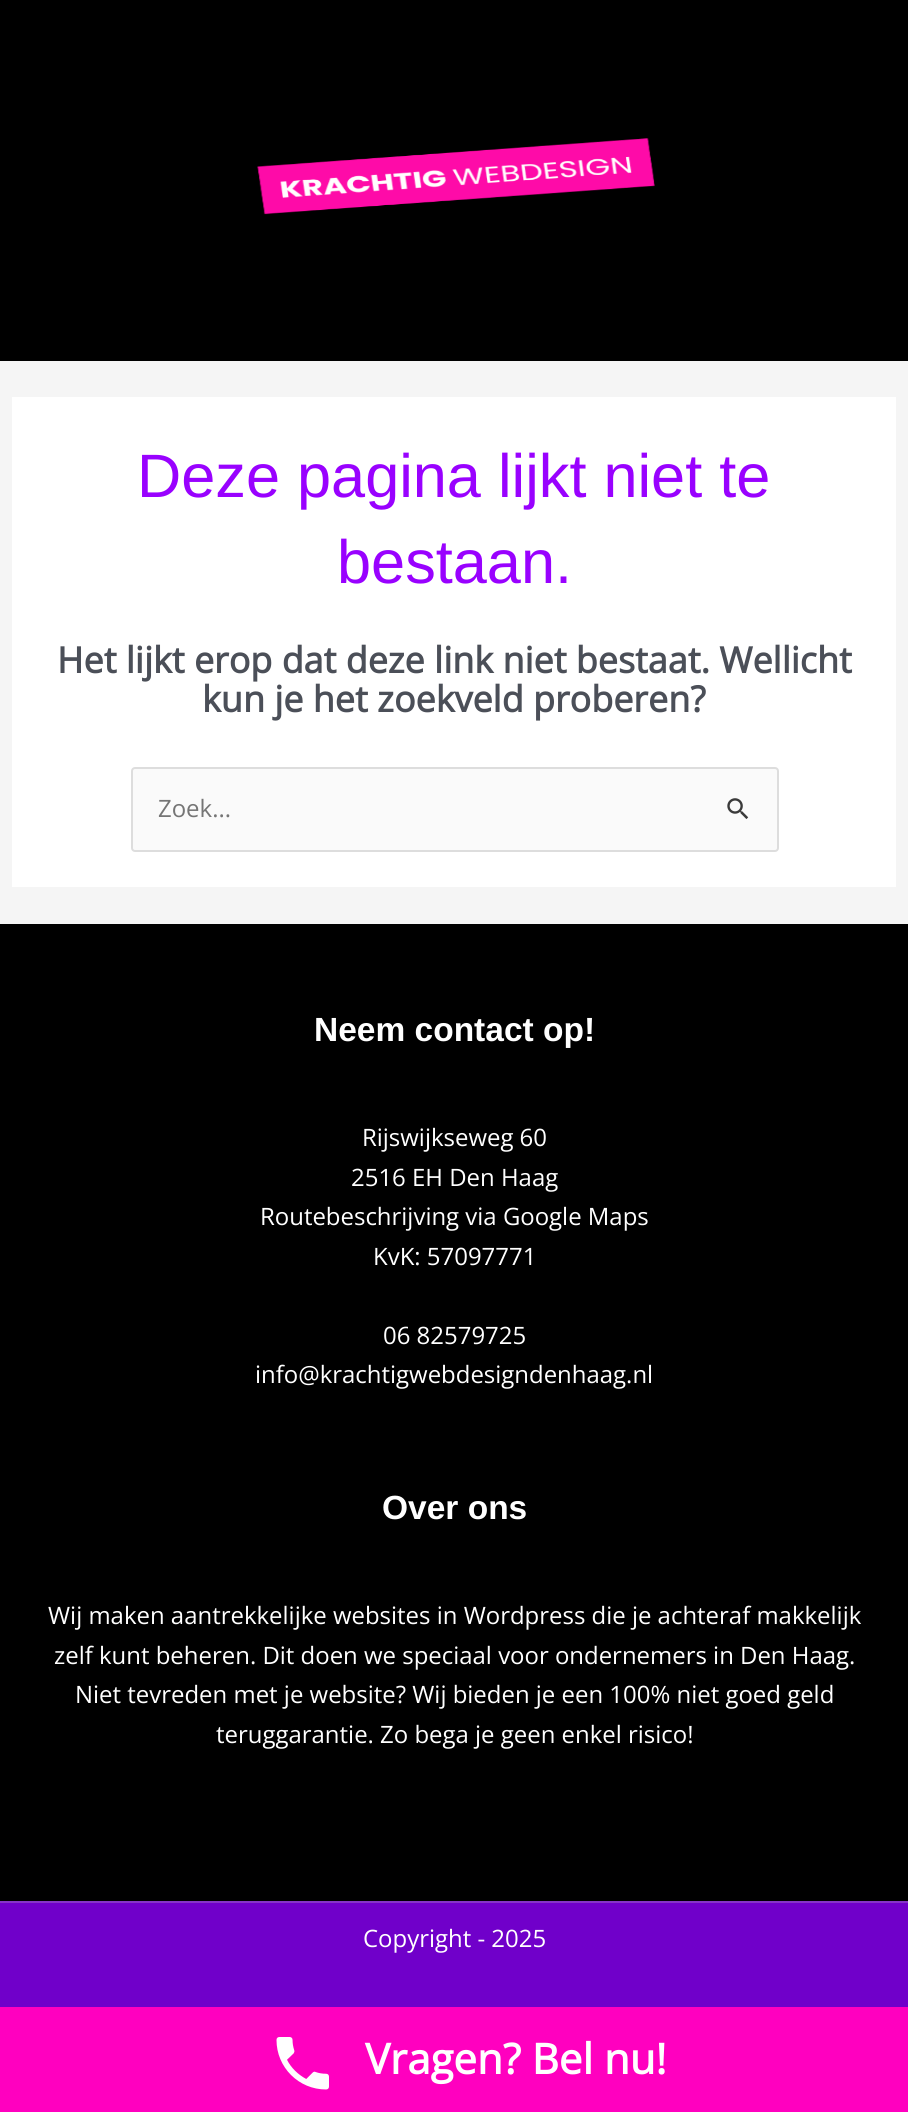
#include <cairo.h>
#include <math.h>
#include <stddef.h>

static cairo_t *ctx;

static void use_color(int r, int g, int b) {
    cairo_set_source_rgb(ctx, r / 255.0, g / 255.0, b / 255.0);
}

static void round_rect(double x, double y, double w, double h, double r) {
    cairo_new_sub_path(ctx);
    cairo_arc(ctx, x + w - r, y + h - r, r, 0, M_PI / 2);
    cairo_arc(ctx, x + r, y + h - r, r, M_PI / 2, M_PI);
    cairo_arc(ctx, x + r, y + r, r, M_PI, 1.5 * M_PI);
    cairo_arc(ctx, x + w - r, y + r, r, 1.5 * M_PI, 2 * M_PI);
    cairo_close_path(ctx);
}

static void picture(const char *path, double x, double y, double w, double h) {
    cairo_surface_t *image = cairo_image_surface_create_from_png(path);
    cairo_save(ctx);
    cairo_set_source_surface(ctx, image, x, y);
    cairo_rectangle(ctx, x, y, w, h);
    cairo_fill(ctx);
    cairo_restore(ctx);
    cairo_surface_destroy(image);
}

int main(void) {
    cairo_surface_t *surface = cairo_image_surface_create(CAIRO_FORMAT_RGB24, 908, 2112);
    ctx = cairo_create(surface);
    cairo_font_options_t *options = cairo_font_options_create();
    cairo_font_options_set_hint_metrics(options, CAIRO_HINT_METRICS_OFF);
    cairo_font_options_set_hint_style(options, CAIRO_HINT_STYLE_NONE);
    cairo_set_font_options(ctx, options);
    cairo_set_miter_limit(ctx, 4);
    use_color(245, 245, 245);
    cairo_paint(ctx);
    use_color(0, 0, 0);
    cairo_rectangle(ctx, 0, 0, 908, 361);
    cairo_fill(ctx);
    picture("img1.png", 257, 138, 398, 77);
    use_color(255, 255, 255);
    cairo_rectangle(ctx, 12, 397, 884, 490);
    cairo_fill(ctx);
    cairo_select_font_face(ctx, "Liberation Sans", CAIRO_FONT_SLANT_NORMAL, CAIRO_FONT_WEIGHT_NORMAL);
    cairo_set_font_size(ctx, 61.25);
    use_color(153, 1, 255);
    cairo_move_to(ctx, 137, 497);
    cairo_show_text(ctx, "Deze pagina lijkt niet te");
    cairo_move_to(ctx, 337, 583);
    cairo_show_text(ctx, "bestaan.");
    cairo_select_font_face(ctx, "Open Sans", CAIRO_FONT_SLANT_NORMAL, CAIRO_FONT_WEIGHT_BOLD);
    cairo_set_font_size(ctx, 35.9);
    use_color(75, 79, 88);
    cairo_move_to(ctx, 57, 673);
    cairo_show_text(ctx, "Het lijkt erop dat deze link niet bestaat. Wellicht");
    cairo_move_to(ctx, 202, 712);
    cairo_show_text(ctx, "kun je het zoekveld proberen?");
    use_color(250, 250, 250);
    round_rect(132, 768, 646, 83, 3);
    cairo_fill_preserve(ctx);
    use_color(221, 221, 221);
    cairo_stroke(ctx);
    cairo_select_font_face(ctx, "Open Sans", CAIRO_FONT_SLANT_NORMAL, CAIRO_FONT_WEIGHT_NORMAL);
    cairo_set_font_size(ctx, 23.95);
    use_color(117, 117, 117);
    cairo_move_to(ctx, 158, 817);
    cairo_show_text(ctx, "Zoek...");
    picture("img2.png", 727, 798, 22, 21);
    use_color(0, 0, 0);
    cairo_rectangle(ctx, 0, 924, 908, 977);
    cairo_fill(ctx);
    cairo_select_font_face(ctx, "Liberation Sans", CAIRO_FONT_SLANT_NORMAL, CAIRO_FONT_WEIGHT_BOLD);
    cairo_set_font_size(ctx, 33.5);
    use_color(255, 255, 255);
    cairo_move_to(ctx, 314, 1041);
    cairo_show_text(ctx, "Neem contact op!");
    cairo_select_font_face(ctx, "Open Sans", CAIRO_FONT_SLANT_NORMAL, CAIRO_FONT_WEIGHT_NORMAL);
    cairo_set_font_size(ctx, 23.95);
    cairo_move_to(ctx, 362, 1146);
    cairo_show_text(ctx, "Rijswijkseweg 60");
    cairo_move_to(ctx, 351, 1186);
    cairo_show_text(ctx, "2516 EH Den Haag");
    cairo_move_to(ctx, 260, 1225);
    cairo_show_text(ctx, "Routebeschrijving via Google Maps");
    cairo_move_to(ctx, 373, 1265);
    cairo_show_text(ctx, "KvK: 57097771");
    cairo_move_to(ctx, 383, 1344);
    cairo_show_text(ctx, "06 82579725");
    cairo_move_to(ctx, 255, 1383);
    cairo_show_text(ctx, "info@krachtigwebdesigndenhaag.nl");
    cairo_select_font_face(ctx, "Liberation Sans", CAIRO_FONT_SLANT_NORMAL, CAIRO_FONT_WEIGHT_BOLD);
    cairo_set_font_size(ctx, 33.5);
    cairo_move_to(ctx, 382, 1519);
    cairo_show_text(ctx, "Over ons");
    cairo_select_font_face(ctx, "Open Sans", CAIRO_FONT_SLANT_NORMAL, CAIRO_FONT_WEIGHT_NORMAL);
    cairo_set_font_size(ctx, 23.95);
    cairo_move_to(ctx, 48, 1624);
    cairo_show_text(ctx, "Wij maken aantrekkelijke websites in Wordpress die je achteraf makkelijk");
    cairo_move_to(ctx, 54, 1664);
    cairo_show_text(ctx, "zelf kunt beheren. Dit doen we speciaal voor ondernemers in Den Haag.");
    cairo_move_to(ctx, 75, 1703);
    cairo_show_text(ctx, "Niet tevreden met je website? Wij bieden je een 100% niet goed geld");
    cairo_move_to(ctx, 216, 1743);
    cairo_show_text(ctx, "teruggarantie. Zo bega je geen enkel risico!");
    use_color(112, 0, 202);
    cairo_rectangle(ctx, 0, 1903, 908, 104);
    cairo_fill(ctx);
    use_color(134, 52, 200);
    cairo_rectangle(ctx, 0, 1901, 908, 2);
    cairo_fill(ctx);
    use_color(255, 255, 255);
    cairo_move_to(ctx, 363, 1947);
    cairo_show_text(ctx, "Copyright - 2025");
    use_color(255, 0, 191);
    cairo_rectangle(ctx, 0, 2007, 908, 105);
    cairo_fill(ctx);
    picture("img3.png", 276, 2037, 53, 53);
    cairo_select_font_face(ctx, "Open Sans", CAIRO_FONT_SLANT_NORMAL, CAIRO_FONT_WEIGHT_BOLD);
    cairo_set_font_size(ctx, 42);
    use_color(255, 255, 255);
    cairo_move_to(ctx, 365, 2074);
    cairo_show_text(ctx, "Vragen? Bel nu!");
    cairo_surface_write_to_png(surface, "result.png");
    cairo_font_options_destroy(options);
    cairo_destroy(ctx);
    cairo_surface_destroy(surface);
    return 0;
}
